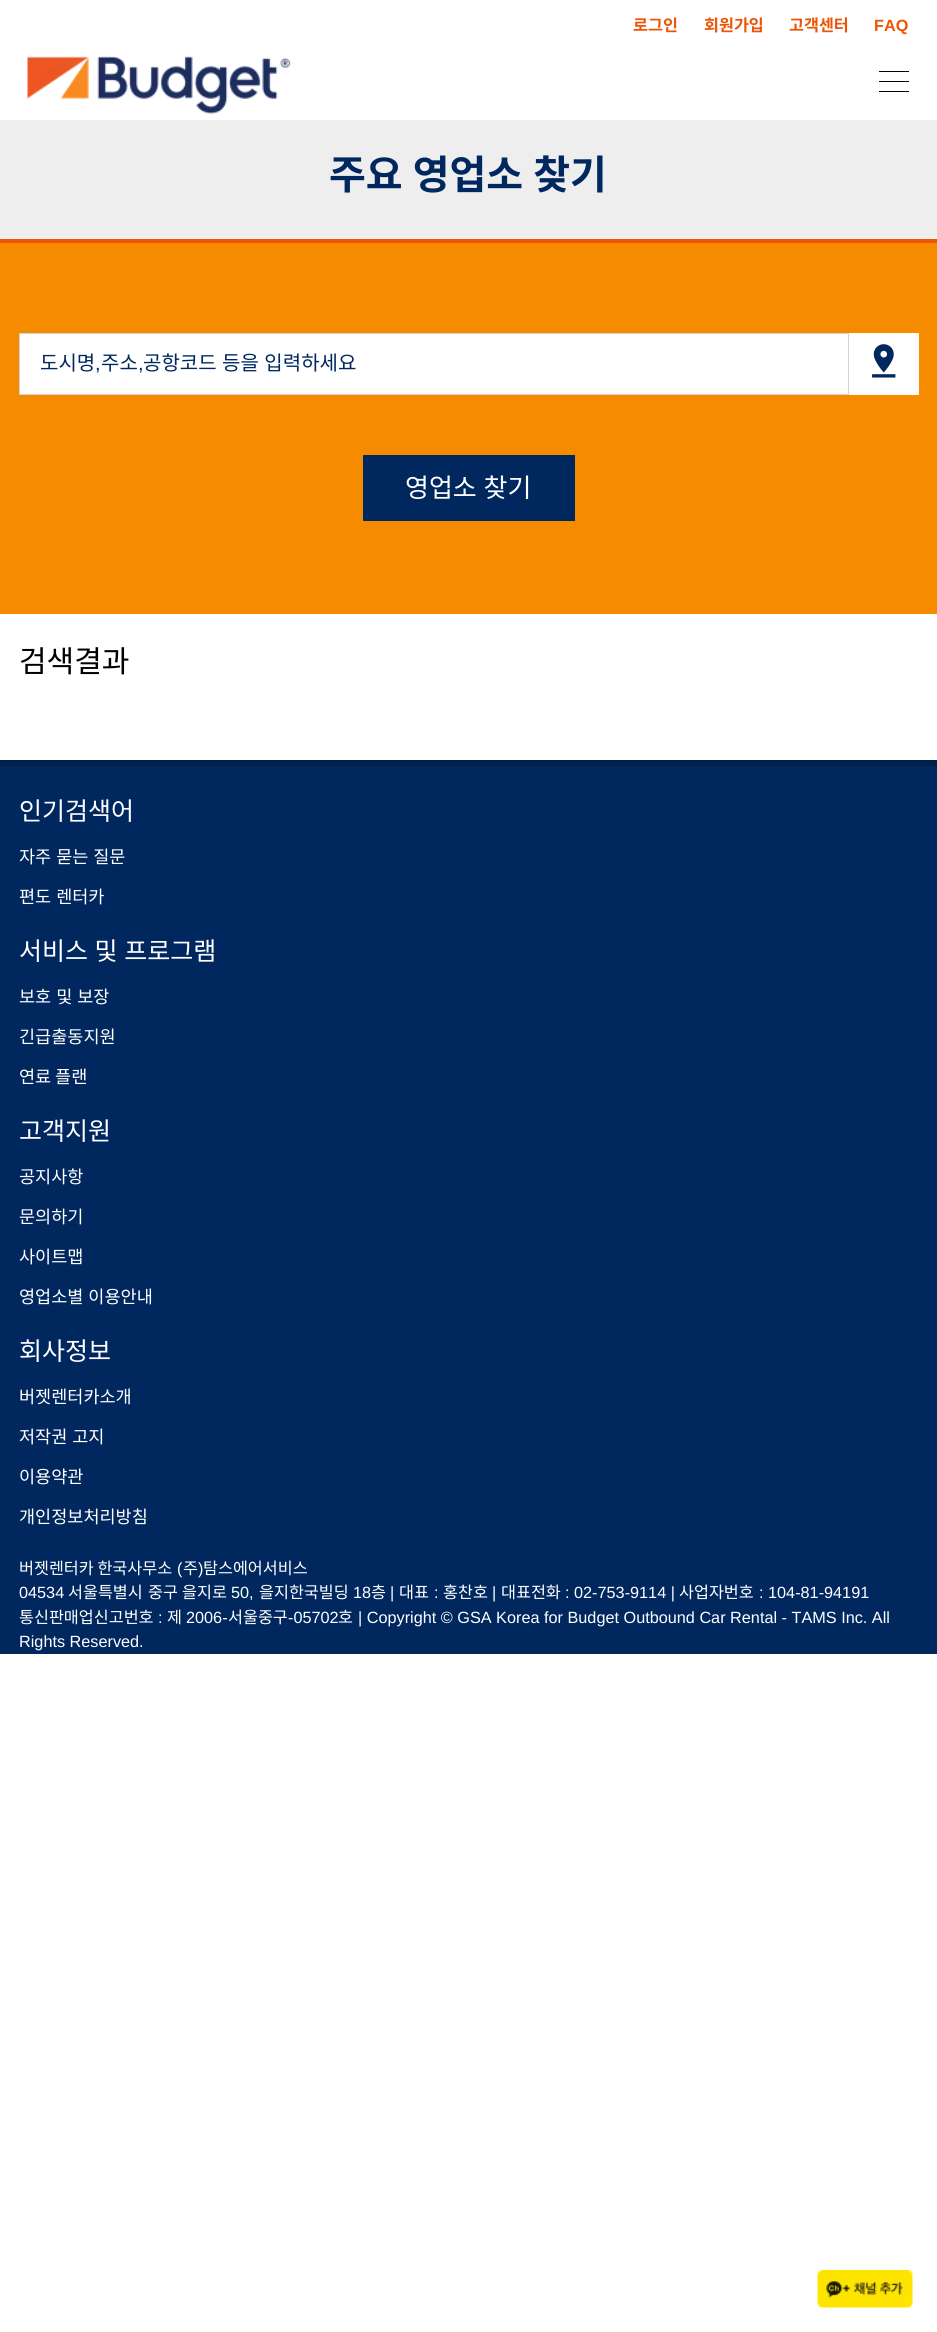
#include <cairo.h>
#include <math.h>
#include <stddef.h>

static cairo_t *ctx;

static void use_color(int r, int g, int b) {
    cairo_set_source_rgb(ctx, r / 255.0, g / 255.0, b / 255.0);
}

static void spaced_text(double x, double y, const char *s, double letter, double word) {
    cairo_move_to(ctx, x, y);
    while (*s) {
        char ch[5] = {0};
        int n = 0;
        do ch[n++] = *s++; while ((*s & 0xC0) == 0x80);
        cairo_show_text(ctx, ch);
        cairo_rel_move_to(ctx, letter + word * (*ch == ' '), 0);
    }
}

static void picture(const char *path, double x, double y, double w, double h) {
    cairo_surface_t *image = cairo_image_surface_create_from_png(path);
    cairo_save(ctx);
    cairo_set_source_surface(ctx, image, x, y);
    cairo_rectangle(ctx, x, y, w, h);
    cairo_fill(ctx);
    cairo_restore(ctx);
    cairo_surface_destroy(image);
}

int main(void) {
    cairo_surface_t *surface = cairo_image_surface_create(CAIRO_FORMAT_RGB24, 937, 2332);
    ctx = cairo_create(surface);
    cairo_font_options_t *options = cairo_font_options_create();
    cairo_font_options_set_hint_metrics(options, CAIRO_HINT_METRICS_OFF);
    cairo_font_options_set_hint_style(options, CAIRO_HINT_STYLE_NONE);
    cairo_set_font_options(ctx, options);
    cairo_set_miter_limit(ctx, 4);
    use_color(255, 255, 255);
    cairo_paint(ctx);
    cairo_select_font_face(ctx, "Noto Sans KR", CAIRO_FONT_SLANT_NORMAL, CAIRO_FONT_WEIGHT_BOLD);
    cairo_set_font_size(ctx, 16.25);
    use_color(237, 85, 5);
    cairo_move_to(ctx, 633, 31);
    cairo_show_text(ctx, "로그인");
    cairo_move_to(ctx, 704, 31);
    cairo_show_text(ctx, "회원가입");
    cairo_move_to(ctx, 789, 31);
    cairo_show_text(ctx, "고객센터");
    cairo_select_font_face(ctx, "Liberation Sans", CAIRO_FONT_SLANT_NORMAL, CAIRO_FONT_WEIGHT_BOLD);
    cairo_move_to(ctx, 874, 31);
    cairo_show_text(ctx, "FAQ");
    picture("img1.png", 27, 56, 264, 58);
    use_color(0, 0, 0);
    cairo_rectangle(ctx, 879, 91, 30, 1);
    cairo_fill(ctx);
    cairo_rectangle(ctx, 879, 71, 30, 1);
    cairo_fill(ctx);
    cairo_rectangle(ctx, 879, 81, 30, 1);
    cairo_fill(ctx);
    use_color(238, 238, 238);
    cairo_rectangle(ctx, 0, 120, 937, 119);
    cairo_fill(ctx);
    cairo_select_font_face(ctx, "Noto Sans KR", CAIRO_FONT_SLANT_NORMAL, CAIRO_FONT_WEIGHT_BOLD);
    cairo_set_font_size(ctx, 40);
    use_color(0, 40, 95);
    spaced_text(329, 189, "주요 영업소 찾기", 0, 1);
    use_color(247, 139, 0);
    cairo_rectangle(ctx, 0, 243, 937, 371);
    cairo_fill(ctx);
    use_color(237, 85, 5);
    cairo_rectangle(ctx, 0, 239, 937, 4);
    cairo_fill(ctx);
    use_color(255, 255, 255);
    cairo_rectangle(ctx, 19.5, 333.5, 829, 61);
    cairo_fill_preserve(ctx);
    use_color(206, 212, 218);
    cairo_set_line_width(ctx, 1);
    cairo_stroke(ctx);
    cairo_select_font_face(ctx, "Noto Sans KR", CAIRO_FONT_SLANT_NORMAL, CAIRO_FONT_WEIGHT_NORMAL);
    cairo_set_font_size(ctx, 20);
    use_color(0, 40, 95);
    cairo_move_to(ctx, 40, 370);
    cairo_show_text(ctx, "도시명");
    cairo_select_font_face(ctx, "Liberation Sans", CAIRO_FONT_SLANT_NORMAL, CAIRO_FONT_WEIGHT_NORMAL);
    cairo_move_to(ctx, 95, 370);
    cairo_show_text(ctx, ",");
    cairo_select_font_face(ctx, "Noto Sans KR", CAIRO_FONT_SLANT_NORMAL, CAIRO_FONT_WEIGHT_NORMAL);
    cairo_move_to(ctx, 101, 370);
    cairo_show_text(ctx, "주소");
    cairo_select_font_face(ctx, "Liberation Sans", CAIRO_FONT_SLANT_NORMAL, CAIRO_FONT_WEIGHT_NORMAL);
    cairo_move_to(ctx, 138, 370);
    cairo_show_text(ctx, ",");
    cairo_select_font_face(ctx, "Noto Sans KR", CAIRO_FONT_SLANT_NORMAL, CAIRO_FONT_WEIGHT_NORMAL);
    spaced_text(143, 370, "공항코드 등을 입력하세요", 0, 1);
    use_color(255, 255, 255);
    cairo_rectangle(ctx, 849, 333, 70, 62);
    cairo_fill(ctx);
    picture("img2.png", 872, 344, 24, 34);
    use_color(0, 40, 95);
    cairo_rectangle(ctx, 363, 455, 212, 66);
    cairo_fill(ctx);
    cairo_set_font_size(ctx, 26);
    use_color(255, 255, 255);
    spaced_text(405, 497, "영업소 찾기", 0, 1);
    cairo_set_font_size(ctx, 30);
    use_color(0, 0, 0);
    cairo_move_to(ctx, 19, 672);
    cairo_show_text(ctx, "검색결과");
    use_color(0, 40, 95);
    cairo_rectangle(ctx, 0, 766, 937, 888);
    cairo_fill(ctx);
    use_color(0, 32, 76);
    cairo_rectangle(ctx, 0, 760, 937, 6);
    cairo_fill(ctx);
    cairo_set_font_size(ctx, 25);
    use_color(255, 255, 255);
    cairo_move_to(ctx, 19, 820);
    cairo_show_text(ctx, "인기검색어");
    cairo_set_font_size(ctx, 17.5);
    spaced_text(19, 863, "자주 묻는 질문", 0, 1);
    spaced_text(19, 903, "편도 렌터카", 0, 1);
    cairo_set_font_size(ctx, 25);
    spaced_text(19, 960, "서비스 및 프로그램", 0, 1);
    cairo_set_font_size(ctx, 17.5);
    spaced_text(19, 1003, "보호 및 보장", 0, 1);
    cairo_move_to(ctx, 19, 1043);
    cairo_show_text(ctx, "긴급출동지원");
    cairo_move_to(ctx, 19, 1083);
    cairo_show_text(ctx, "연료 플랜");
    cairo_set_font_size(ctx, 25);
    cairo_move_to(ctx, 19, 1140);
    cairo_show_text(ctx, "고객지원");
    cairo_set_font_size(ctx, 17.5);
    cairo_move_to(ctx, 19, 1183);
    cairo_show_text(ctx, "공지사항");
    cairo_move_to(ctx, 19, 1223);
    cairo_show_text(ctx, "문의하기");
    cairo_move_to(ctx, 19, 1263);
    cairo_show_text(ctx, "사이트맵");
    spaced_text(19, 1303, "영업소별 이용안내", 0, 1);
    cairo_set_font_size(ctx, 25);
    cairo_move_to(ctx, 19, 1360);
    cairo_show_text(ctx, "회사정보");
    cairo_set_font_size(ctx, 17.5);
    cairo_move_to(ctx, 19, 1403);
    cairo_show_text(ctx, "버젯렌터카소개");
    spaced_text(19, 1443, "저작권 고지", 0, 1);
    cairo_move_to(ctx, 19, 1483);
    cairo_show_text(ctx, "이용약관");
    cairo_move_to(ctx, 19, 1523);
    cairo_show_text(ctx, "개인정보처리방침");
    cairo_set_font_size(ctx, 16.25);
    cairo_move_to(ctx, 19, 1574);
    cairo_show_text(ctx, "버젯렌터카 한국사무소");
    cairo_select_font_face(ctx, "Liberation Sans", CAIRO_FONT_SLANT_NORMAL, CAIRO_FONT_WEIGHT_NORMAL);
    cairo_move_to(ctx, 177, 1574);
    cairo_show_text(ctx, "(");
    cairo_select_font_face(ctx, "Noto Sans KR", CAIRO_FONT_SLANT_NORMAL, CAIRO_FONT_WEIGHT_NORMAL);
    cairo_move_to(ctx, 183, 1574);
    cairo_show_text(ctx, "주");
    cairo_select_font_face(ctx, "Liberation Sans", CAIRO_FONT_SLANT_NORMAL, CAIRO_FONT_WEIGHT_NORMAL);
    cairo_move_to(ctx, 198, 1574);
    cairo_show_text(ctx, ")");
    cairo_select_font_face(ctx, "Noto Sans KR", CAIRO_FONT_SLANT_NORMAL, CAIRO_FONT_WEIGHT_NORMAL);
    cairo_move_to(ctx, 203, 1574);
    cairo_show_text(ctx, "탐스에어서비스");
    cairo_select_font_face(ctx, "Liberation Sans", CAIRO_FONT_SLANT_NORMAL, CAIRO_FONT_WEIGHT_NORMAL);
    cairo_move_to(ctx, 19, 1598);
    cairo_show_text(ctx, "04534");
    cairo_select_font_face(ctx, "Noto Sans KR", CAIRO_FONT_SLANT_NORMAL, CAIRO_FONT_WEIGHT_NORMAL);
    cairo_move_to(ctx, 68, 1598);
    cairo_show_text(ctx, "서울특별시");
    cairo_move_to(ctx, 148, 1598);
    cairo_show_text(ctx, "중구");
    cairo_move_to(ctx, 182, 1598);
    cairo_show_text(ctx, "을지로");
    cairo_select_font_face(ctx, "Liberation Sans", CAIRO_FONT_SLANT_NORMAL, CAIRO_FONT_WEIGHT_NORMAL);
    cairo_move_to(ctx, 231, 1598);
    cairo_show_text(ctx, "50,");
    cairo_select_font_face(ctx, "Noto Sans KR", CAIRO_FONT_SLANT_NORMAL, CAIRO_FONT_WEIGHT_NORMAL);
    cairo_move_to(ctx, 259, 1598);
    cairo_show_text(ctx, "을지한국빌딩");
    cairo_select_font_face(ctx, "Liberation Sans", CAIRO_FONT_SLANT_NORMAL, CAIRO_FONT_WEIGHT_NORMAL);
    cairo_move_to(ctx, 353, 1598);
    cairo_show_text(ctx, "18");
    cairo_select_font_face(ctx, "Noto Sans KR", CAIRO_FONT_SLANT_NORMAL, CAIRO_FONT_WEIGHT_NORMAL);
    cairo_move_to(ctx, 371, 1598);
    cairo_show_text(ctx, "층");
    cairo_select_font_face(ctx, "Liberation Sans", CAIRO_FONT_SLANT_NORMAL, CAIRO_FONT_WEIGHT_NORMAL);
    cairo_move_to(ctx, 390, 1598);
    cairo_show_text(ctx, "|");
    cairo_select_font_face(ctx, "Noto Sans KR", CAIRO_FONT_SLANT_NORMAL, CAIRO_FONT_WEIGHT_NORMAL);
    cairo_move_to(ctx, 399, 1598);
    cairo_show_text(ctx, "대표");
    cairo_select_font_face(ctx, "Liberation Sans", CAIRO_FONT_SLANT_NORMAL, CAIRO_FONT_WEIGHT_NORMAL);
    cairo_move_to(ctx, 434, 1598);
    cairo_show_text(ctx, ":");
    cairo_select_font_face(ctx, "Noto Sans KR", CAIRO_FONT_SLANT_NORMAL, CAIRO_FONT_WEIGHT_NORMAL);
    cairo_move_to(ctx, 443, 1598);
    cairo_show_text(ctx, "홍찬호");
    cairo_select_font_face(ctx, "Liberation Sans", CAIRO_FONT_SLANT_NORMAL, CAIRO_FONT_WEIGHT_NORMAL);
    cairo_move_to(ctx, 492, 1598);
    cairo_show_text(ctx, "|");
    cairo_select_font_face(ctx, "Noto Sans KR", CAIRO_FONT_SLANT_NORMAL, CAIRO_FONT_WEIGHT_NORMAL);
    cairo_move_to(ctx, 501, 1598);
    cairo_show_text(ctx, "대표전화");
    cairo_select_font_face(ctx, "Liberation Sans", CAIRO_FONT_SLANT_NORMAL, CAIRO_FONT_WEIGHT_NORMAL);
    cairo_move_to(ctx, 565, 1598);
    cairo_show_text(ctx, ": 02-753-9114 |");
    cairo_select_font_face(ctx, "Noto Sans KR", CAIRO_FONT_SLANT_NORMAL, CAIRO_FONT_WEIGHT_NORMAL);
    cairo_move_to(ctx, 679, 1598);
    cairo_show_text(ctx, "사업자번호");
    cairo_select_font_face(ctx, "Liberation Sans", CAIRO_FONT_SLANT_NORMAL, CAIRO_FONT_WEIGHT_NORMAL);
    cairo_move_to(ctx, 759, 1598);
    cairo_show_text(ctx, ": 104-81-94191");
    cairo_select_font_face(ctx, "Noto Sans KR", CAIRO_FONT_SLANT_NORMAL, CAIRO_FONT_WEIGHT_NORMAL);
    cairo_move_to(ctx, 19, 1623);
    cairo_show_text(ctx, "통신판매업신고번호");
    cairo_select_font_face(ctx, "Liberation Sans", CAIRO_FONT_SLANT_NORMAL, CAIRO_FONT_WEIGHT_NORMAL);
    cairo_move_to(ctx, 158, 1623);
    cairo_show_text(ctx, ":");
    cairo_select_font_face(ctx, "Noto Sans KR", CAIRO_FONT_SLANT_NORMAL, CAIRO_FONT_WEIGHT_NORMAL);
    cairo_move_to(ctx, 167, 1623);
    cairo_show_text(ctx, "제");
    cairo_select_font_face(ctx, "Liberation Sans", CAIRO_FONT_SLANT_NORMAL, CAIRO_FONT_WEIGHT_NORMAL);
    cairo_move_to(ctx, 186, 1623);
    cairo_show_text(ctx, "2006-");
    cairo_select_font_face(ctx, "Noto Sans KR", CAIRO_FONT_SLANT_NORMAL, CAIRO_FONT_WEIGHT_NORMAL);
    cairo_move_to(ctx, 228, 1623);
    cairo_show_text(ctx, "서울중구");
    cairo_select_font_face(ctx, "Liberation Sans", CAIRO_FONT_SLANT_NORMAL, CAIRO_FONT_WEIGHT_NORMAL);
    cairo_move_to(ctx, 288, 1623);
    cairo_show_text(ctx, "-05702");
    cairo_select_font_face(ctx, "Noto Sans KR", CAIRO_FONT_SLANT_NORMAL, CAIRO_FONT_WEIGHT_NORMAL);
    cairo_move_to(ctx, 338, 1623);
    cairo_show_text(ctx, "호");
    cairo_select_font_face(ctx, "Liberation Sans", CAIRO_FONT_SLANT_NORMAL, CAIRO_FONT_WEIGHT_NORMAL);
    cairo_move_to(ctx, 358, 1623);
    cairo_show_text(ctx, "| Copyright © GSA Korea for Budget Outbound Car Rental - TAMS Inc. All");
    cairo_move_to(ctx, 19, 1647);
    cairo_show_text(ctx, "Rights Reserved.");
    picture("img3.png", 817, 2270, 96, 38);
    cairo_surface_write_to_png(surface, "result.png");
    cairo_font_options_destroy(options);
    cairo_destroy(ctx);
    cairo_surface_destroy(surface);
    return 0;
}
